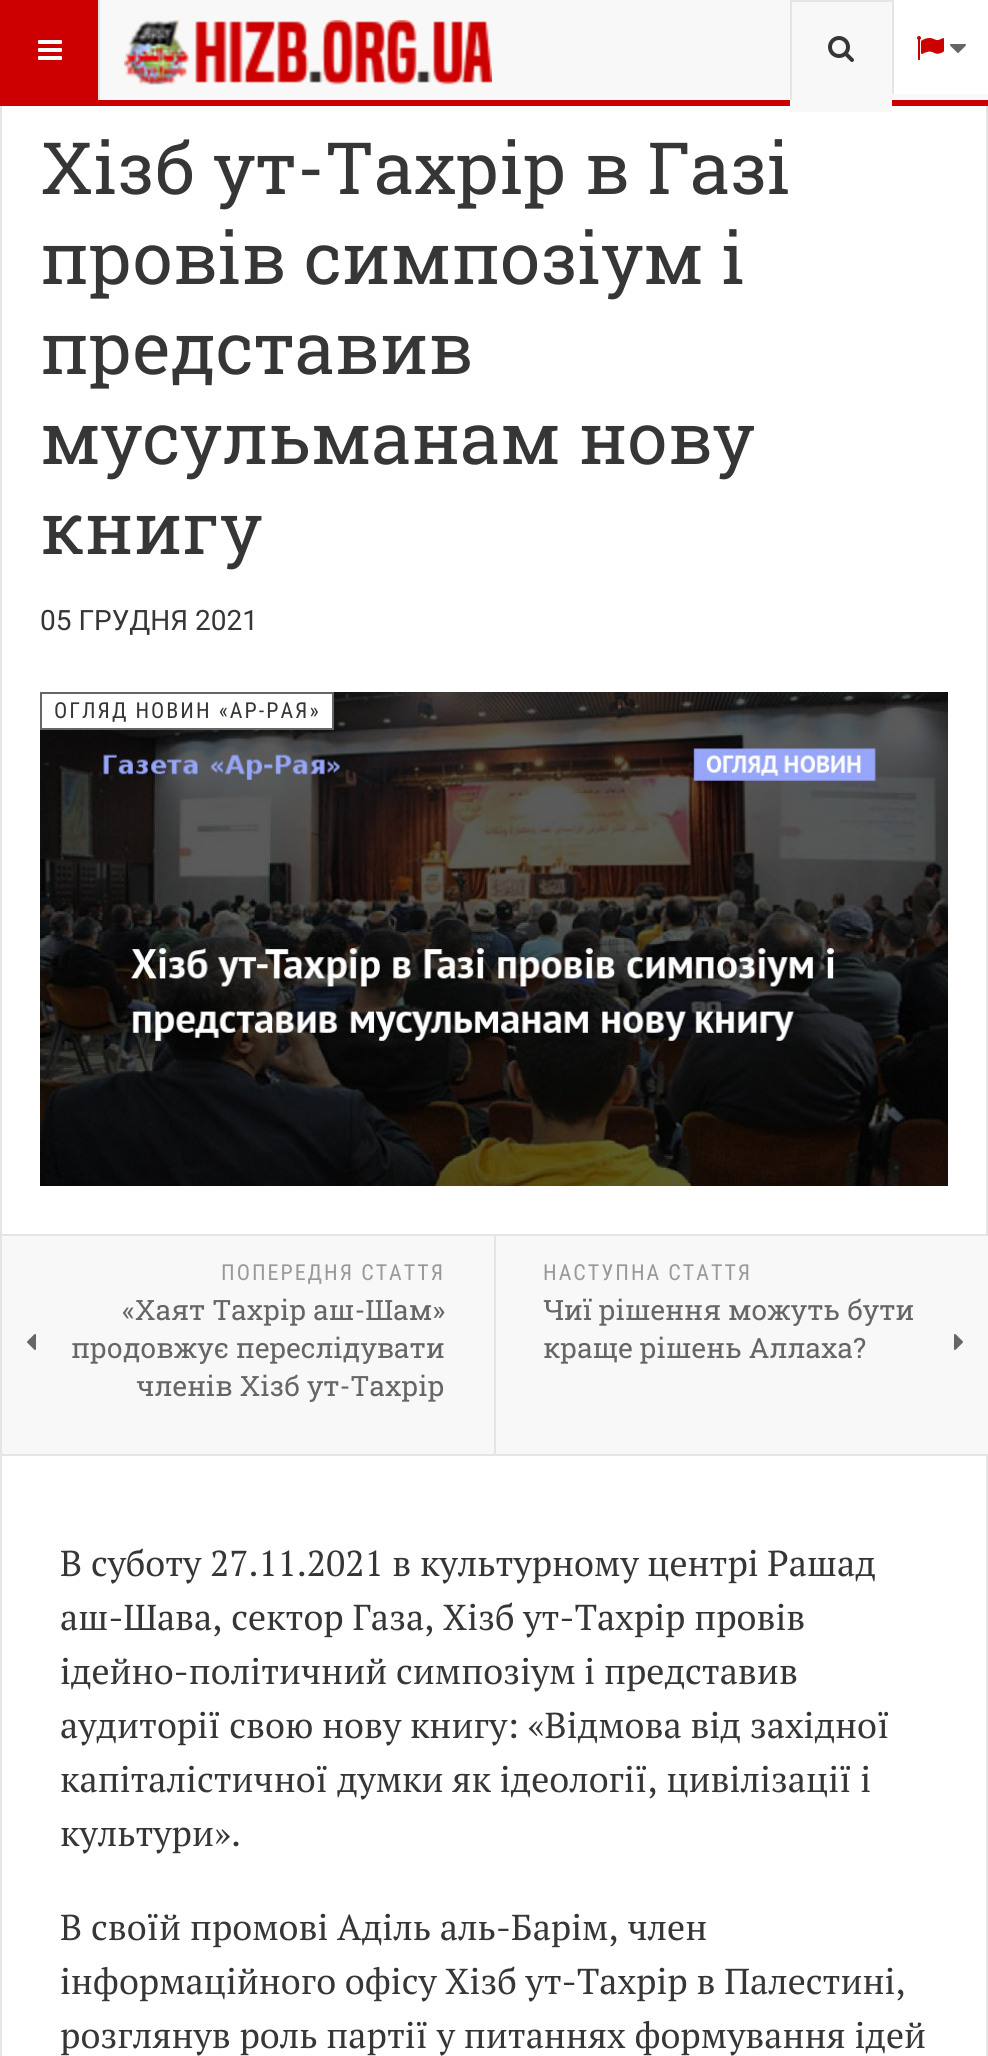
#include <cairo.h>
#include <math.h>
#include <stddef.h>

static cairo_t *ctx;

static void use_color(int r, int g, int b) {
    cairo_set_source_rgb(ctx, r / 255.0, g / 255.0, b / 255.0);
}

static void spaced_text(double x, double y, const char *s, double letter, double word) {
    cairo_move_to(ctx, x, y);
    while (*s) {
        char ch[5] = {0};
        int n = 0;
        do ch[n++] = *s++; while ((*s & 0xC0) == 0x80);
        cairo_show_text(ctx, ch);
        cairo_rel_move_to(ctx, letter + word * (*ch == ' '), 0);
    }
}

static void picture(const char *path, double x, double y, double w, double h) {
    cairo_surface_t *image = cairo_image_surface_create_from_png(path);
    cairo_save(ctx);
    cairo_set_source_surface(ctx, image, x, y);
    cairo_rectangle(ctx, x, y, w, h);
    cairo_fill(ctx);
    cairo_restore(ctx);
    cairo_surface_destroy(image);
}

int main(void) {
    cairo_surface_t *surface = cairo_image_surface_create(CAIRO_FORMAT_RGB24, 988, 2056);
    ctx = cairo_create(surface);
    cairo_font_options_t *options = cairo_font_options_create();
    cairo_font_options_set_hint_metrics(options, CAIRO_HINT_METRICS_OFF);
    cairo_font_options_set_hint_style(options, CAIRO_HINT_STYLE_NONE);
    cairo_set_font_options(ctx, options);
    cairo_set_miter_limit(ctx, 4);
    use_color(255, 255, 255);
    cairo_paint(ctx);
    cairo_rectangle(ctx, 1, 75, 986, 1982);
    use_color(229, 229, 229);
    cairo_stroke(ctx);
    use_color(248, 248, 248);
    cairo_rectangle(ctx, 100, 0, 888, 100);
    cairo_fill(ctx);
    use_color(204, 0, 0);
    cairo_rectangle(ctx, 0, 100, 988, 6);
    cairo_fill(ctx);
    cairo_rectangle(ctx, 0, 0, 98, 100);
    cairo_fill(ctx);
    use_color(229, 229, 229);
    cairo_rectangle(ctx, 98, 0, 2, 100);
    cairo_fill(ctx);
    picture("img1.png", 38, 40, 24, 20);
    picture("img2.png", 124, 20, 368, 65);
    use_color(248, 248, 248);
    cairo_rectangle(ctx, 790, 100, 102, 12);
    cairo_fill(ctx);
    use_color(229, 229, 229);
    cairo_rectangle(ctx, 792, 0, 100, 2);
    cairo_fill(ctx);
    cairo_rectangle(ctx, 790, 0, 2, 100);
    cairo_fill(ctx);
    picture("img3.png", 828, 36, 26, 26);
    use_color(255, 255, 255);
    cairo_rectangle(ctx, 894, 0, 94, 94);
    cairo_fill(ctx);
    use_color(229, 229, 229);
    cairo_rectangle(ctx, 892, 0, 2, 94);
    cairo_fill(ctx);
    picture("img4.png", 917, 36, 27, 24);
    picture("img5.png", 950, 44, 16, 9);
    cairo_select_font_face(ctx, "Roboto Slab", CAIRO_FONT_SLANT_NORMAL, CAIRO_FONT_WEIGHT_NORMAL);
    cairo_set_font_size(ctx, 72);
    use_color(54, 54, 54);
    cairo_move_to(ctx, 40, 194);
    cairo_show_text(ctx, "Хізб ут-Тахрір в Газі");
    cairo_move_to(ctx, 40, 284);
    cairo_show_text(ctx, "провів симпозіум і");
    cairo_move_to(ctx, 40, 374);
    cairo_show_text(ctx, "представив");
    cairo_move_to(ctx, 40, 464);
    cairo_show_text(ctx, "мусульманам нову");
    cairo_move_to(ctx, 40, 554);
    cairo_show_text(ctx, "книгу");
    cairo_select_font_face(ctx, "Roboto", CAIRO_FONT_SLANT_NORMAL, CAIRO_FONT_WEIGHT_NORMAL);
    cairo_set_font_size(ctx, 28);
    cairo_move_to(ctx, 40, 630);
    cairo_show_text(ctx, "05 ГРУДНЯ 2021");
    picture("img6.png", 40, 692, 908, 494);
    use_color(255, 255, 255);
    cairo_rectangle(ctx, 41, 693, 292, 36);
    cairo_fill_preserve(ctx);
    use_color(102, 102, 102);
    cairo_stroke(ctx);
    cairo_select_font_face(ctx, "Roboto Condensed", CAIRO_FONT_SLANT_NORMAL, CAIRO_FONT_WEIGHT_NORMAL);
    cairo_set_font_size(ctx, 22);
    use_color(54, 54, 54);
    spaced_text(54, 718, "ОГЛЯД НОВИН «АР-РАЯ»", 2, 0);
    use_color(229, 229, 229);
    cairo_rectangle(ctx, 0, 1234, 988, 2);
    cairo_fill(ctx);
    cairo_rectangle(ctx, 0, 1454, 988, 2);
    cairo_fill(ctx);
    cairo_rectangle(ctx, 494, 1236, 2, 218);
    cairo_fill(ctx);
    use_color(248, 248, 248);
    cairo_rectangle(ctx, 2, 1236, 492, 218);
    cairo_fill(ctx);
    use_color(153, 153, 153);
    spaced_text(221, 1280, "ПОПЕРЕДНЯ СТАТТЯ", 2, 0);
    cairo_select_font_face(ctx, "Roboto Slab", CAIRO_FONT_SLANT_NORMAL, CAIRO_FONT_WEIGHT_NORMAL);
    cairo_set_font_size(ctx, 28);
    use_color(102, 102, 102);
    cairo_move_to(ctx, 122, 1320);
    cairo_show_text(ctx, "«Хаят Тахрір аш-Шам»");
    picture("img7.png", 27, 1334, 9, 16);
    cairo_move_to(ctx, 71, 1358);
    cairo_show_text(ctx, "продовжує переслідувати");
    cairo_move_to(ctx, 136, 1396);
    cairo_show_text(ctx, "членів Хізб ут-Тахрір");
    use_color(248, 248, 248);
    cairo_rectangle(ctx, 496, 1236, 492, 218);
    cairo_fill(ctx);
    cairo_select_font_face(ctx, "Roboto Condensed", CAIRO_FONT_SLANT_NORMAL, CAIRO_FONT_WEIGHT_NORMAL);
    cairo_set_font_size(ctx, 22);
    use_color(153, 153, 153);
    spaced_text(543, 1280, "НАСТУПНА СТАТТЯ", 2, 0);
    cairo_select_font_face(ctx, "Roboto Slab", CAIRO_FONT_SLANT_NORMAL, CAIRO_FONT_WEIGHT_NORMAL);
    cairo_set_font_size(ctx, 28);
    use_color(102, 102, 102);
    cairo_move_to(ctx, 543, 1320);
    cairo_show_text(ctx, "Чиї рішення можуть бути");
    cairo_move_to(ctx, 543, 1358);
    cairo_show_text(ctx, "краще рішень Аллаха?");
    picture("img8.png", 954, 1334, 9, 16);
    cairo_select_font_face(ctx, "PT Serif", CAIRO_FONT_SLANT_NORMAL, CAIRO_FONT_WEIGHT_NORMAL);
    cairo_set_font_size(ctx, 36);
    use_color(54, 54, 54);
    cairo_move_to(ctx, 60, 1576);
    cairo_show_text(ctx, "В суботу 27.11.2021 в культурному центрі Рашад");
    cairo_move_to(ctx, 60, 1630);
    cairo_show_text(ctx, "аш-Шава, сектор Газа, Хізб ут-Тахрір провів");
    cairo_move_to(ctx, 60, 1684);
    cairo_show_text(ctx, "ідейно-політичний симпозіум і представив");
    cairo_move_to(ctx, 60, 1738);
    cairo_show_text(ctx, "аудиторії свою нову книгу: «Відмова від західної");
    cairo_move_to(ctx, 60, 1792);
    cairo_show_text(ctx, "капіталістичної думки як ідеології, цивілізації і");
    cairo_move_to(ctx, 60, 1846);
    cairo_show_text(ctx, "культури».");
    cairo_move_to(ctx, 60, 1940);
    cairo_show_text(ctx, "В своїй промові Аділь аль-Барім, член");
    cairo_move_to(ctx, 60, 1994);
    cairo_show_text(ctx, "інформаційного офісу Хізб ут-Тахрір в Палестині,");
    cairo_move_to(ctx, 60, 2048);
    cairo_show_text(ctx, "розглянув роль партії у питаннях формування ідей");
    cairo_surface_write_to_png(surface, "result.png");
    cairo_font_options_destroy(options);
    cairo_destroy(ctx);
    cairo_surface_destroy(surface);
    return 0;
}
